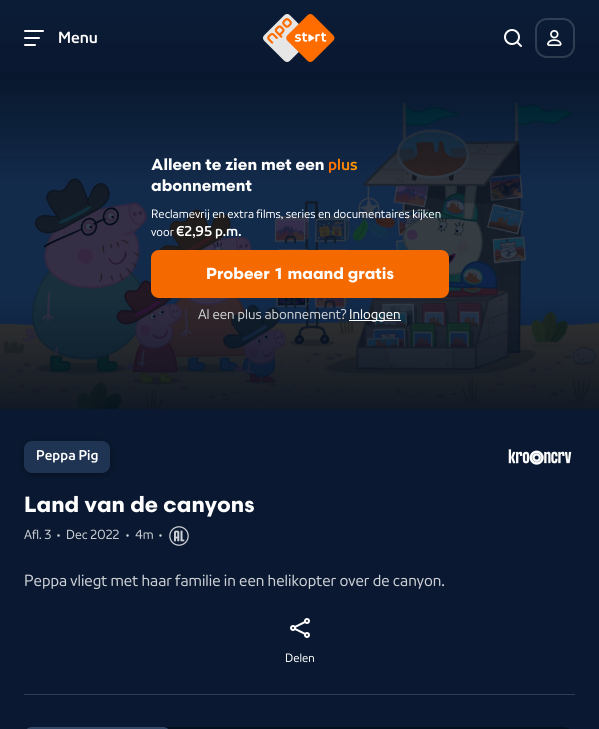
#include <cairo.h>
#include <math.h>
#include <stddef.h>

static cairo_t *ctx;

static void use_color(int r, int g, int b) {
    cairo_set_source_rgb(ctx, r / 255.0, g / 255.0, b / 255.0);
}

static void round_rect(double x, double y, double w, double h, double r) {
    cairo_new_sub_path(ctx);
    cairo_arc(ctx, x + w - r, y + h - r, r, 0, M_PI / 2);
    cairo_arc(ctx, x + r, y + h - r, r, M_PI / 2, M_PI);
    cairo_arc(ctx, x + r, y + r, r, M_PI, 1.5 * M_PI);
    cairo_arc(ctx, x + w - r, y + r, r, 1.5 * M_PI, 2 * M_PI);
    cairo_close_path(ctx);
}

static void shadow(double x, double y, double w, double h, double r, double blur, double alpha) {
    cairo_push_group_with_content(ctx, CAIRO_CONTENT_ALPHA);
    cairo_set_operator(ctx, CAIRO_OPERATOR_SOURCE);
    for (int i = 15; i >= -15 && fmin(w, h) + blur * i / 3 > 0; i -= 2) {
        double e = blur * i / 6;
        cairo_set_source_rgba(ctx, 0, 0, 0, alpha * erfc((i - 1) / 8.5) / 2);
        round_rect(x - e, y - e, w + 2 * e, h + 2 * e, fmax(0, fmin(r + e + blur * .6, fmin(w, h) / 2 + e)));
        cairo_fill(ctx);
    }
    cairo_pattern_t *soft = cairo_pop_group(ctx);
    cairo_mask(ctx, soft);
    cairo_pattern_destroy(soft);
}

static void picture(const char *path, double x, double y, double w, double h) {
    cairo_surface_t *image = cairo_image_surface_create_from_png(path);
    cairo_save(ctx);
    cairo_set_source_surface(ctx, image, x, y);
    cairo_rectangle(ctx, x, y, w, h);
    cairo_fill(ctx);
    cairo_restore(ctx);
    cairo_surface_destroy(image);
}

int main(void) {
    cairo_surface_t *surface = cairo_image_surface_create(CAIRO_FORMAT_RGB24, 599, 729);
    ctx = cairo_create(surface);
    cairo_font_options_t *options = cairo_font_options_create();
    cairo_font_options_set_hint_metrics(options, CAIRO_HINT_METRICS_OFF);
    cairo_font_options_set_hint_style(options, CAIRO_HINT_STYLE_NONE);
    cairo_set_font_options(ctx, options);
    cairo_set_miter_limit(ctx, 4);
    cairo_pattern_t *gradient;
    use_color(10, 25, 49);
    cairo_paint(ctx);
    gradient = cairo_pattern_create_linear(300, 76, 300, 0);
    cairo_pattern_add_color_stop_rgba(gradient, 0, 0.043, 0.11, 0.212, 0);
    cairo_pattern_add_color_stop_rgba(gradient, 1, 0.043, 0.11, 0.212, 1);
    cairo_set_source(ctx, gradient);
    cairo_pattern_destroy(gradient);
    cairo_rectangle(ctx, 0, 0, 599, 42);
    cairo_fill(ctx);
    picture("img1.png", 24, 30, 20, 16);
    cairo_select_font_face(ctx, "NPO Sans", CAIRO_FONT_SLANT_NORMAL, CAIRO_FONT_WEIGHT_BOLD);
    cairo_set_font_size(ctx, 16);
    use_color(255, 255, 255);
    cairo_move_to(ctx, 58, 43);
    cairo_show_text(ctx, "Menu");
    picture("img2.png", 263, 14, 72, 48);
    picture("img3.png", 504, 29, 18, 18);
    round_rect(536, 19, 38, 38, 11);
    cairo_set_source_rgba(ctx, 1, 1, 1, 0.16);
    cairo_stroke(ctx);
    picture("img4.png", 547, 30, 15, 16);
    picture("img5.png", 0, 72, 599, 337);
    cairo_select_font_face(ctx, "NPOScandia", CAIRO_FONT_SLANT_NORMAL, CAIRO_FONT_WEIGHT_BOLD);
    use_color(255, 255, 255);
    cairo_move_to(ctx, 151, 170);
    cairo_show_text(ctx, "Alleen te zien met een");
    cairo_select_font_face(ctx, "NPO Sans", CAIRO_FONT_SLANT_NORMAL, CAIRO_FONT_WEIGHT_BOLD);
    gradient = cairo_pattern_create_linear(328, 165, 357, 165);
    cairo_pattern_add_color_stop_rgba(gradient, 0, 1, 0.427, 0, 1);
    cairo_pattern_add_color_stop_rgba(gradient, 1, 1, 0.6, 0, 1);
    cairo_set_source(ctx, gradient);
    cairo_pattern_destroy(gradient);
    cairo_move_to(ctx, 328, 170);
    cairo_show_text(ctx, "plus");
    cairo_select_font_face(ctx, "NPOScandia", CAIRO_FONT_SLANT_NORMAL, CAIRO_FONT_WEIGHT_BOLD);
    use_color(255, 255, 255);
    cairo_move_to(ctx, 151, 191);
    cairo_show_text(ctx, "abonnement");
    cairo_select_font_face(ctx, "NPO Sans", CAIRO_FONT_SLANT_NORMAL, CAIRO_FONT_WEIGHT_NORMAL);
    cairo_set_font_size(ctx, 12);
    cairo_move_to(ctx, 151, 218);
    cairo_show_text(ctx, "Reclamevrij en extra films, series en documentaires kijken");
    cairo_move_to(ctx, 151, 236);
    cairo_show_text(ctx, "voor");
    cairo_select_font_face(ctx, "NPO Sans", CAIRO_FONT_SLANT_NORMAL, CAIRO_FONT_WEIGHT_BOLD);
    cairo_set_font_size(ctx, 14);
    cairo_move_to(ctx, 176, 236);
    cairo_show_text(ctx, "€2,95 p.m.");
    use_color(245, 106, 0);
    round_rect(151, 250, 298, 48, 8);
    cairo_fill(ctx);
    cairo_select_font_face(ctx, "NPOScandia", CAIRO_FONT_SLANT_NORMAL, CAIRO_FONT_WEIGHT_BOLD);
    cairo_set_font_size(ctx, 16);
    use_color(255, 255, 255);
    cairo_move_to(ctx, 206, 279);
    cairo_show_text(ctx, "Probeer 1 maand gratis");
    cairo_select_font_face(ctx, "NPO Sans", CAIRO_FONT_SLANT_NORMAL, CAIRO_FONT_WEIGHT_NORMAL);
    cairo_set_font_size(ctx, 14);
    use_color(206, 209, 214);
    cairo_move_to(ctx, 198, 319);
    cairo_show_text(ctx, "Al een plus abonnement?");
    use_color(255, 255, 255);
    cairo_rectangle(ctx, 349, 320, 52, 1);
    cairo_fill(ctx);
    cairo_move_to(ctx, 349, 319);
    cairo_show_text(ctx, "Inloggen");
    use_color(0, 0, 0);
    shadow(24, 443, 86, 32, 8, 4, 0.35);
    use_color(31, 51, 83);
    round_rect(24, 441, 86, 32, 8);
    cairo_fill(ctx);
    cairo_select_font_face(ctx, "NPO Sans", CAIRO_FONT_SLANT_NORMAL, CAIRO_FONT_WEIGHT_BOLD);
    use_color(255, 255, 255);
    cairo_move_to(ctx, 36, 460);
    cairo_show_text(ctx, "Peppa Pig");
    picture("img6.png", 508, 449, 64, 16);
    cairo_select_font_face(ctx, "NPOScandia", CAIRO_FONT_SLANT_NORMAL, CAIRO_FONT_WEIGHT_BOLD);
    cairo_set_font_size(ctx, 22);
    cairo_move_to(ctx, 24, 512);
    cairo_show_text(ctx, "Land van de canyons");
    cairo_select_font_face(ctx, "NPO Sans", CAIRO_FONT_SLANT_NORMAL, CAIRO_FONT_WEIGHT_NORMAL);
    cairo_set_font_size(ctx, 13);
    use_color(206, 209, 214);
    cairo_move_to(ctx, 24, 539);
    cairo_show_text(ctx, "Afl. 3");
    cairo_move_to(ctx, 57, 539);
    cairo_show_text(ctx, "•");
    cairo_move_to(ctx, 66, 539);
    cairo_show_text(ctx, "Dec 2022");
    cairo_move_to(ctx, 126, 539);
    cairo_show_text(ctx, "•");
    cairo_move_to(ctx, 135, 539);
    cairo_show_text(ctx, "4m");
    cairo_move_to(ctx, 159, 539);
    cairo_show_text(ctx, "•");
    picture("img7.png", 169, 526, 20, 20);
    cairo_set_font_size(ctx, 16);
    cairo_move_to(ctx, 24, 586);
    cairo_show_text(ctx, "Peppa vliegt met haar familie in een helikopter over de canyon.");
    picture("img8.png", 290, 618, 20, 20);
    cairo_set_font_size(ctx, 12);
    use_color(255, 255, 255);
    cairo_move_to(ctx, 285, 662);
    cairo_show_text(ctx, "Delen");
    use_color(49, 62, 82);
    cairo_rectangle(ctx, 24, 694, 551, 1);
    cairo_fill(ctx);
    use_color(3, 14, 30);
    round_rect(24, 727, 551, 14, 12);
    cairo_fill(ctx);
    use_color(51, 71, 103);
    round_rect(24, 727, 147, 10, 8);
    cairo_fill(ctx);
    cairo_surface_write_to_png(surface, "result.png");
    cairo_font_options_destroy(options);
    cairo_destroy(ctx);
    cairo_surface_destroy(surface);
    return 0;
}
